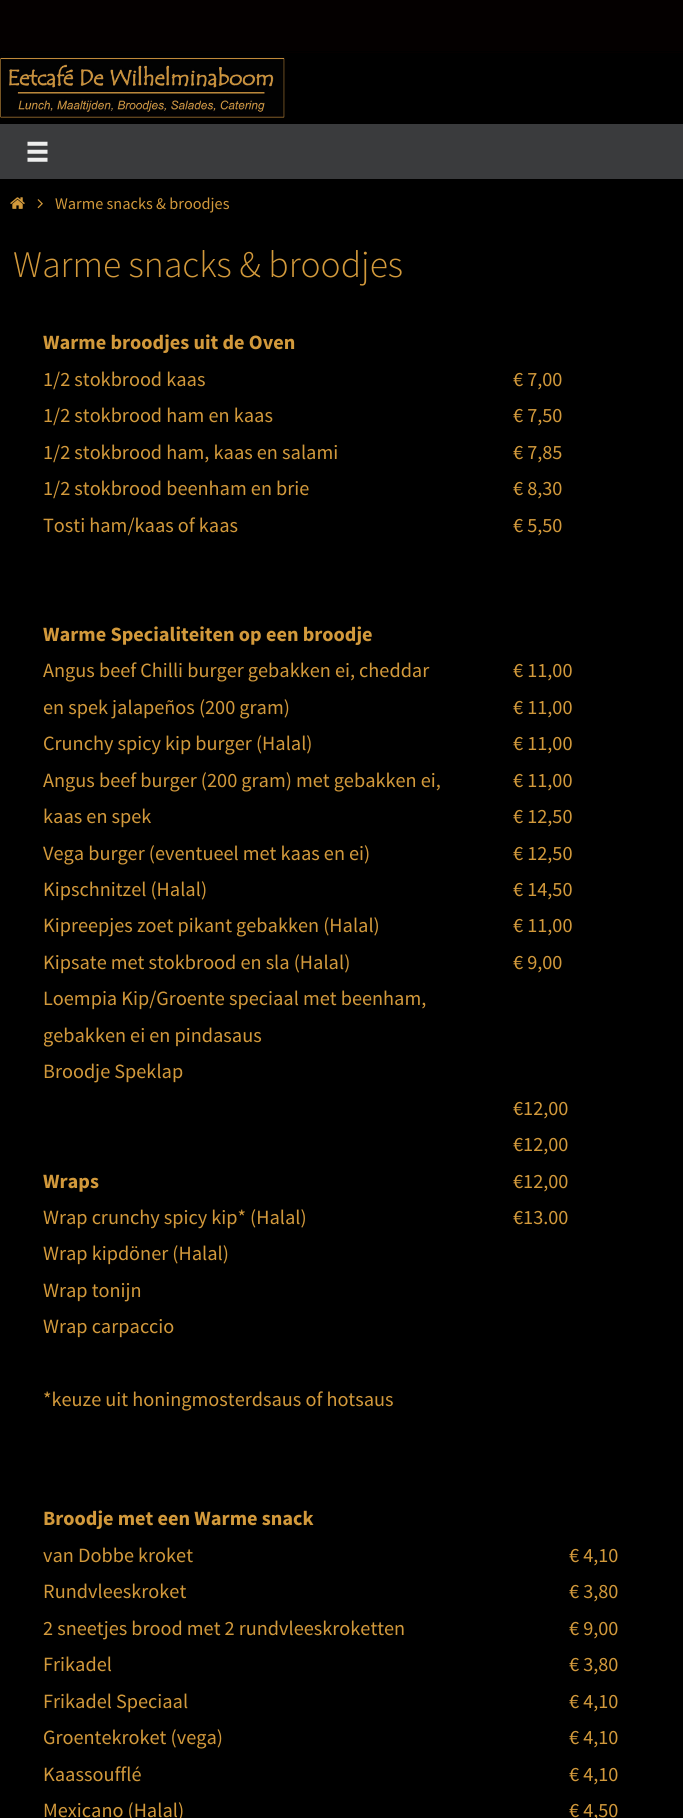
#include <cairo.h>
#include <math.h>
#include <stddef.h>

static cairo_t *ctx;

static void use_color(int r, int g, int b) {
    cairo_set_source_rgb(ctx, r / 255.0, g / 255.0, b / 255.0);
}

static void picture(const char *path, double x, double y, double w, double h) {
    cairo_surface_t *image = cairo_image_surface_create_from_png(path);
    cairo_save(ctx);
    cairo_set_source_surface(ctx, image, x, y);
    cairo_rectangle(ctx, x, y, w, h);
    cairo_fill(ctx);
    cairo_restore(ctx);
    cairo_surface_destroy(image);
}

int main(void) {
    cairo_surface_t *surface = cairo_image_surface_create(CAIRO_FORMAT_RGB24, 683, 1818);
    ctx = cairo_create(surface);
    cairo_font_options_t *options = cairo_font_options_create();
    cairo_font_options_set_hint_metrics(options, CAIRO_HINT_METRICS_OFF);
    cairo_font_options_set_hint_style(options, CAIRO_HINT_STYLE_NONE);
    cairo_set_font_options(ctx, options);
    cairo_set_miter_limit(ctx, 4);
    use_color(0, 0, 0);
    cairo_paint(ctx);
    use_color(4, 0, 0);
    cairo_rectangle(ctx, 0, 0, 683, 53);
    cairo_fill(ctx);
    use_color(0, 0, 0);
    cairo_rectangle(ctx, 0, 51, 683, 1);
    cairo_fill(ctx);
    picture("img1.png", 0, 57, 285, 61);
    use_color(58, 59, 61);
    cairo_rectangle(ctx, 0, 124, 683, 55);
    cairo_fill(ctx);
    picture("img2.png", 27, 141, 21, 21);
    picture("img3.png", 10, 197, 15, 12);
    picture("img4.png", 37, 199, 6, 10);
    cairo_select_font_face(ctx, "Source Sans Pro", CAIRO_FONT_SLANT_NORMAL, CAIRO_FONT_WEIGHT_NORMAL);
    cairo_set_font_size(ctx, 16.25);
    use_color(210, 153, 59);
    cairo_move_to(ctx, 55, 209);
    cairo_show_text(ctx, "Warme snacks & broodjes");
    cairo_select_font_face(ctx, "Source Sans Pro Light", CAIRO_FONT_SLANT_NORMAL, CAIRO_FONT_WEIGHT_NORMAL);
    cairo_set_font_size(ctx, 37.5);
    cairo_move_to(ctx, 13, 277);
    cairo_show_text(ctx, "Warme snacks & broodjes");
    cairo_select_font_face(ctx, "Source Sans Pro", CAIRO_FONT_SLANT_NORMAL, CAIRO_FONT_WEIGHT_BOLD);
    cairo_set_font_size(ctx, 20.25);
    cairo_move_to(ctx, 43, 349);
    cairo_show_text(ctx, "Warme broodjes uit de Oven");
    cairo_select_font_face(ctx, "Source Sans Pro", CAIRO_FONT_SLANT_NORMAL, CAIRO_FONT_WEIGHT_NORMAL);
    cairo_move_to(ctx, 43, 386);
    cairo_show_text(ctx, "1/2 stokbrood kaas");
    cairo_move_to(ctx, 43, 422);
    cairo_show_text(ctx, "1/2 stokbrood ham en kaas");
    cairo_move_to(ctx, 43, 459);
    cairo_show_text(ctx, "1/2 stokbrood ham, kaas en salami");
    cairo_move_to(ctx, 43, 495);
    cairo_show_text(ctx, "1/2 stokbrood beenham en brie");
    cairo_move_to(ctx, 43, 532);
    cairo_show_text(ctx, "Tosti ham/kaas of kaas");
    cairo_select_font_face(ctx, "Source Sans Pro", CAIRO_FONT_SLANT_NORMAL, CAIRO_FONT_WEIGHT_BOLD);
    cairo_move_to(ctx, 43, 641);
    cairo_show_text(ctx, "Warme Specialiteiten op een broodje");
    cairo_select_font_face(ctx, "Source Sans Pro", CAIRO_FONT_SLANT_NORMAL, CAIRO_FONT_WEIGHT_NORMAL);
    cairo_move_to(ctx, 43, 677);
    cairo_show_text(ctx, "Angus beef Chilli burger gebakken ei, cheddar");
    cairo_move_to(ctx, 43, 714);
    cairo_show_text(ctx, "en spek jalapeños (200 gram)");
    cairo_move_to(ctx, 43, 750);
    cairo_show_text(ctx, "Crunchy spicy kip burger (Halal)");
    cairo_move_to(ctx, 43, 787);
    cairo_show_text(ctx, "Angus beef burger (200 gram) met gebakken ei,");
    cairo_move_to(ctx, 43, 823);
    cairo_show_text(ctx, "kaas en spek");
    cairo_move_to(ctx, 43, 860);
    cairo_show_text(ctx, "Vega burger (eventueel met kaas en ei)");
    cairo_move_to(ctx, 43, 896);
    cairo_show_text(ctx, "Kipschnitzel (Halal)");
    cairo_move_to(ctx, 43, 932);
    cairo_show_text(ctx, "Kipreepjes zoet pikant gebakken (Halal)");
    cairo_move_to(ctx, 43, 969);
    cairo_show_text(ctx, "Kipsate met stokbrood en sla (Halal)");
    cairo_move_to(ctx, 43, 1005);
    cairo_show_text(ctx, "Loempia Kip/Groente speciaal met beenham,");
    cairo_move_to(ctx, 43, 1042);
    cairo_show_text(ctx, "gebakken ei en pindasaus");
    cairo_move_to(ctx, 43, 1078);
    cairo_show_text(ctx, "Broodje Speklap");
    cairo_select_font_face(ctx, "Source Sans Pro", CAIRO_FONT_SLANT_NORMAL, CAIRO_FONT_WEIGHT_BOLD);
    cairo_move_to(ctx, 43, 1188);
    cairo_show_text(ctx, "Wraps");
    cairo_select_font_face(ctx, "Source Sans Pro", CAIRO_FONT_SLANT_NORMAL, CAIRO_FONT_WEIGHT_NORMAL);
    cairo_move_to(ctx, 43, 1224);
    cairo_show_text(ctx, "Wrap crunchy spicy kip* (Halal)");
    cairo_move_to(ctx, 43, 1260);
    cairo_show_text(ctx, "Wrap kipdöner (Halal)");
    cairo_move_to(ctx, 43, 1297);
    cairo_show_text(ctx, "Wrap tonijn");
    cairo_move_to(ctx, 43, 1333);
    cairo_show_text(ctx, "Wrap carpaccio");
    cairo_move_to(ctx, 43, 1406);
    cairo_show_text(ctx, "*keuze uit honingmosterdsaus of hotsaus");
    cairo_move_to(ctx, 513, 386);
    cairo_show_text(ctx, "€ 7,00");
    cairo_move_to(ctx, 513, 422);
    cairo_show_text(ctx, "€ 7,50");
    cairo_move_to(ctx, 513, 459);
    cairo_show_text(ctx, "€ 7,85");
    cairo_move_to(ctx, 513, 495);
    cairo_show_text(ctx, "€ 8,30");
    cairo_move_to(ctx, 513, 532);
    cairo_show_text(ctx, "€ 5,50");
    cairo_move_to(ctx, 513, 677);
    cairo_show_text(ctx, "€ 11,00");
    cairo_move_to(ctx, 513, 714);
    cairo_show_text(ctx, "€ 11,00");
    cairo_move_to(ctx, 513, 750);
    cairo_show_text(ctx, "€ 11,00");
    cairo_move_to(ctx, 513, 787);
    cairo_show_text(ctx, "€ 11,00");
    cairo_move_to(ctx, 513, 823);
    cairo_show_text(ctx, "€ 12,50");
    cairo_move_to(ctx, 513, 860);
    cairo_show_text(ctx, "€ 12,50");
    cairo_move_to(ctx, 513, 896);
    cairo_show_text(ctx, "€ 14,50");
    cairo_move_to(ctx, 513, 932);
    cairo_show_text(ctx, "€ 11,00");
    cairo_move_to(ctx, 513, 969);
    cairo_show_text(ctx, "€ 9,00");
    cairo_move_to(ctx, 513, 1115);
    cairo_show_text(ctx, "€12,00");
    cairo_move_to(ctx, 513, 1151);
    cairo_show_text(ctx, "€12,00");
    cairo_move_to(ctx, 513, 1188);
    cairo_show_text(ctx, "€12,00");
    cairo_move_to(ctx, 513, 1224);
    cairo_show_text(ctx, "€13.00");
    cairo_select_font_face(ctx, "Source Sans Pro", CAIRO_FONT_SLANT_NORMAL, CAIRO_FONT_WEIGHT_BOLD);
    cairo_move_to(ctx, 43, 1525);
    cairo_show_text(ctx, "Broodje met een Warme snack");
    cairo_select_font_face(ctx, "Source Sans Pro", CAIRO_FONT_SLANT_NORMAL, CAIRO_FONT_WEIGHT_NORMAL);
    cairo_move_to(ctx, 43, 1562);
    cairo_show_text(ctx, "van Dobbe kroket");
    cairo_move_to(ctx, 43, 1598);
    cairo_show_text(ctx, "Rundvleeskroket");
    cairo_move_to(ctx, 43, 1635);
    cairo_show_text(ctx, "2 sneetjes brood met 2 rundvleeskroketten");
    cairo_move_to(ctx, 43, 1671);
    cairo_show_text(ctx, "Frikadel");
    cairo_move_to(ctx, 43, 1708);
    cairo_show_text(ctx, "Frikadel Speciaal");
    cairo_move_to(ctx, 43, 1744);
    cairo_show_text(ctx, "Groentekroket (vega)");
    cairo_move_to(ctx, 43, 1781);
    cairo_show_text(ctx, "Kaassoufflé");
    cairo_move_to(ctx, 43, 1817);
    cairo_show_text(ctx, "Mexicano (Halal)");
    cairo_move_to(ctx, 569, 1562);
    cairo_show_text(ctx, "€ 4,10");
    cairo_move_to(ctx, 569, 1598);
    cairo_show_text(ctx, "€ 3,80");
    cairo_move_to(ctx, 569, 1635);
    cairo_show_text(ctx, "€ 9,00");
    cairo_move_to(ctx, 569, 1671);
    cairo_show_text(ctx, "€ 3,80");
    cairo_move_to(ctx, 569, 1708);
    cairo_show_text(ctx, "€ 4,10");
    cairo_move_to(ctx, 569, 1744);
    cairo_show_text(ctx, "€ 4,10");
    cairo_move_to(ctx, 569, 1781);
    cairo_show_text(ctx, "€ 4,10");
    cairo_move_to(ctx, 569, 1817);
    cairo_show_text(ctx, "€ 4,50");
    cairo_surface_write_to_png(surface, "result.png");
    cairo_font_options_destroy(options);
    cairo_destroy(ctx);
    cairo_surface_destroy(surface);
    return 0;
}
